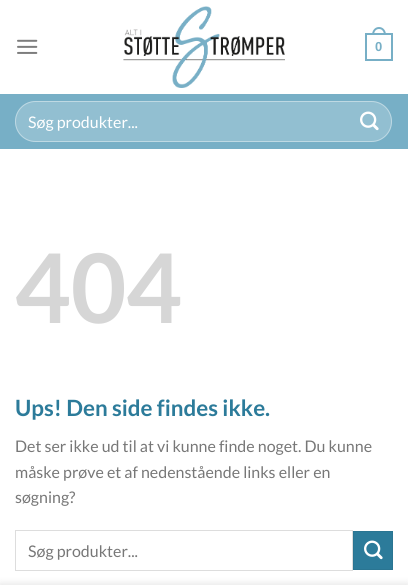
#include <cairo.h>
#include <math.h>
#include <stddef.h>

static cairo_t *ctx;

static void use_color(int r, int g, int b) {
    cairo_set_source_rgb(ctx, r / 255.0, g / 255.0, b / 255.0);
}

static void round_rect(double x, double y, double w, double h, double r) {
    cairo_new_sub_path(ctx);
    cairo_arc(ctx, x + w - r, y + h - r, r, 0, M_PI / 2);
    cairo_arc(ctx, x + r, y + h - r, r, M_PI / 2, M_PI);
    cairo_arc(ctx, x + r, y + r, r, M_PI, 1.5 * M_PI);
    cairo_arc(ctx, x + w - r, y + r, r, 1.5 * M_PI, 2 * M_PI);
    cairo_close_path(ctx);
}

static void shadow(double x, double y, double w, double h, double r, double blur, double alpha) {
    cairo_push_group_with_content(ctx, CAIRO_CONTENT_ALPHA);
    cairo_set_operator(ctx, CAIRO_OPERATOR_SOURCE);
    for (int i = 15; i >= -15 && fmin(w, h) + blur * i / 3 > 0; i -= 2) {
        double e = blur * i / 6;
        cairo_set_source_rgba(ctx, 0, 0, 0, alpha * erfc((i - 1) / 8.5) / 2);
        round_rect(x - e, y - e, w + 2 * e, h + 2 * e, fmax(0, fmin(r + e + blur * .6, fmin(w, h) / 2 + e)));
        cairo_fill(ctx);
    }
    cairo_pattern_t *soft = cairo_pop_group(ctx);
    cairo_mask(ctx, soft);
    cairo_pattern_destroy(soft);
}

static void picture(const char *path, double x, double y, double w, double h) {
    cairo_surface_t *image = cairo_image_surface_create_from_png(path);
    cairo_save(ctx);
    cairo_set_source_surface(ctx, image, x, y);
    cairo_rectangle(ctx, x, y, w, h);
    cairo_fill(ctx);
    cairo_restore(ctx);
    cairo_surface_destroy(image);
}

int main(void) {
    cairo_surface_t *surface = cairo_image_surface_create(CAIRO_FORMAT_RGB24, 408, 585);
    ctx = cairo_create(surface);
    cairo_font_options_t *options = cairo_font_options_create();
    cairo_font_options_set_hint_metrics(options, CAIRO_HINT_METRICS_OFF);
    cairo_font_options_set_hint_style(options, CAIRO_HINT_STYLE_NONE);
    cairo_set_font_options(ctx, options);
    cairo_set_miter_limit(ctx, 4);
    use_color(255, 255, 255);
    cairo_paint(ctx);
    picture("img1.png", 17, 39, 21, 15);
    picture("img2.png", 123, 6, 162, 82);
    cairo_rectangle(ctx, 366, 34, 26, 26);
    use_color(119, 175, 198);
    cairo_stroke(ctx);
    cairo_set_fill_rule(ctx, CAIRO_FILL_RULE_EVEN_ODD);
    cairo_new_path(ctx);
    cairo_move_to(ctx, 379, 27);
    cairo_curve_to(ctx, 383.5, 27, 386, 31, 386, 35);
    cairo_line_to(ctx, 372, 35);
    cairo_curve_to(ctx, 372, 31, 374.5, 27, 379, 27);
    cairo_close_path(ctx);
    cairo_move_to(ctx, 379, 29);
    cairo_curve_to(ctx, 382.5, 29, 384, 32, 384, 35);
    cairo_line_to(ctx, 374, 35);
    cairo_curve_to(ctx, 374, 32, 375.5, 29, 379, 29);
    cairo_close_path(ctx);
    cairo_fill(ctx);
    cairo_select_font_face(ctx, "Liberation Sans", CAIRO_FONT_SLANT_NORMAL, CAIRO_FONT_WEIGHT_BOLD);
    cairo_set_font_size(ctx, 13);
    cairo_move_to(ctx, 375, 51);
    cairo_show_text(ctx, "0");
    cairo_rectangle(ctx, 0, 94, 408, 55);
    cairo_fill(ctx);
    use_color(146, 191, 209);
    round_rect(15, 101, 377, 41, 20.5);
    cairo_fill(ctx);
    round_rect(15.5, 101.5, 376, 40, 20);
    cairo_set_source_rgba(ctx, 1, 1, 1, 0.4);
    cairo_set_line_width(ctx, 1);
    cairo_stroke(ctx);
    cairo_select_font_face(ctx, "Lato", CAIRO_FONT_SLANT_NORMAL, CAIRO_FONT_WEIGHT_NORMAL);
    cairo_set_font_size(ctx, 16);
    use_color(255, 255, 255);
    cairo_move_to(ctx, 28, 128);
    cairo_show_text(ctx, "Søg produkter...");
    picture("img3.png", 360, 111, 19, 20);
    cairo_select_font_face(ctx, "Lato", CAIRO_FONT_SLANT_NORMAL, CAIRO_FONT_WEIGHT_BOLD);
    cairo_set_font_size(ctx, 96);
    use_color(214, 214, 214);
    cairo_move_to(ctx, 15, 323);
    cairo_show_text(ctx, "404");
    cairo_set_font_size(ctx, 22.4);
    use_color(44, 123, 154);
    cairo_move_to(ctx, 15, 416);
    cairo_show_text(ctx, "Ups! Den side findes ikke.");
    cairo_select_font_face(ctx, "Lato", CAIRO_FONT_SLANT_NORMAL, CAIRO_FONT_WEIGHT_NORMAL);
    cairo_set_font_size(ctx, 16);
    use_color(119, 119, 119);
    cairo_move_to(ctx, 15, 452);
    cairo_show_text(ctx, "Det ser ikke ud til at vi kunne finde noget. Du kunne");
    cairo_move_to(ctx, 15, 478);
    cairo_show_text(ctx, "måske prøve et af nedenstående links eller en");
    cairo_move_to(ctx, 15, 503);
    cairo_show_text(ctx, "søgning?");
    cairo_rectangle(ctx, 15.5, 530.5, 337, 40);
    use_color(221, 221, 221);
    cairo_stroke(ctx);
    use_color(119, 119, 119);
    cairo_move_to(ctx, 28, 557);
    cairo_show_text(ctx, "Søg produkter...");
    use_color(44, 123, 154);
    cairo_rectangle(ctx, 353.5, 531.5, 39, 38);
    cairo_fill_preserve(ctx);
    use_color(42, 117, 146);
    cairo_stroke(ctx);
    picture("img4.png", 364, 540, 19, 20);
    use_color(0, 0, 0);
    shadow(0, 585, 408, 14, 0, 4.5, 0.14);
    cairo_surface_write_to_png(surface, "result.png");
    cairo_font_options_destroy(options);
    cairo_destroy(ctx);
    cairo_surface_destroy(surface);
    return 0;
}
